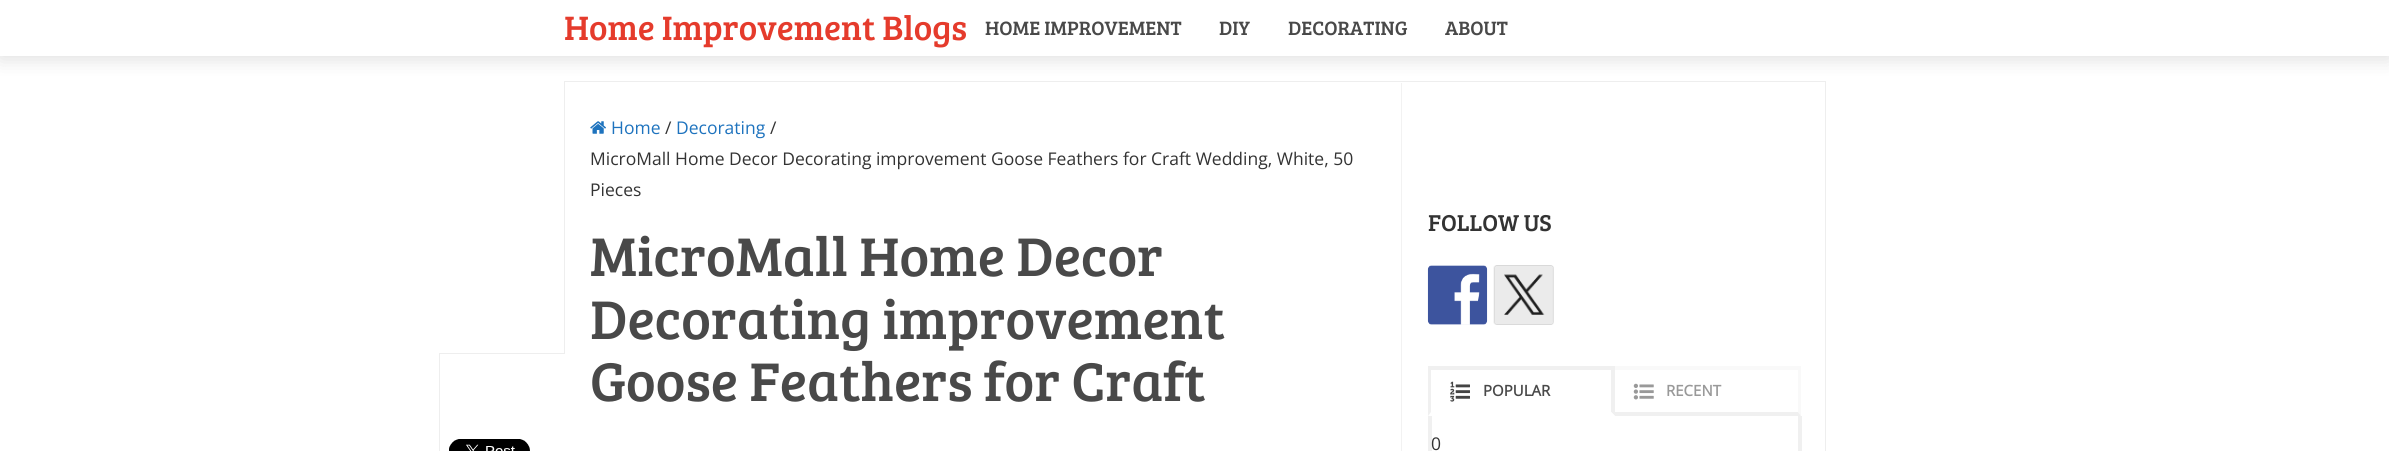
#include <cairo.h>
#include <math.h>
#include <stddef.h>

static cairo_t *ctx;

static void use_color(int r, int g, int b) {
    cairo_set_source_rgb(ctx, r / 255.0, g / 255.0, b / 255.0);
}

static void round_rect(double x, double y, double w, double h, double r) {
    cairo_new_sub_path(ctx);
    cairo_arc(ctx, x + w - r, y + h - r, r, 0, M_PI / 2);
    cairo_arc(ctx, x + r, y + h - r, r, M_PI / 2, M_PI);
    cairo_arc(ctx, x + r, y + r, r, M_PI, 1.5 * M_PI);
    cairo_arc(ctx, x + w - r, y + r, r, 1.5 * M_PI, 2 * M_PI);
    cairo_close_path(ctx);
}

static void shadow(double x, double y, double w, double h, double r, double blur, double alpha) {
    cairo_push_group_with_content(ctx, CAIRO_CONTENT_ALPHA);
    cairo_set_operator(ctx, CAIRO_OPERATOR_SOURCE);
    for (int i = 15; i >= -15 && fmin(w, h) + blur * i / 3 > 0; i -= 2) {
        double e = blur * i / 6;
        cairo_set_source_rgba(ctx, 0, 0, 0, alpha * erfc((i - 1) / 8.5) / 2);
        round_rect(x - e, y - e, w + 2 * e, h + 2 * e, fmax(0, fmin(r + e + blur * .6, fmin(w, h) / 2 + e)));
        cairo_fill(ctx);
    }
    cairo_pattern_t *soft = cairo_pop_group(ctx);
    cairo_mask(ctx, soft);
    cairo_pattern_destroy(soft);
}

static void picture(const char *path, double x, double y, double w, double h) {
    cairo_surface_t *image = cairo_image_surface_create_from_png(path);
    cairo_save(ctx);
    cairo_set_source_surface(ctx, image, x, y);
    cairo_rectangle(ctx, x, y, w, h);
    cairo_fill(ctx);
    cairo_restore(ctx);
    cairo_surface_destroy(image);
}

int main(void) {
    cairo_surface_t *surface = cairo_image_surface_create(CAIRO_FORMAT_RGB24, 2389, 451);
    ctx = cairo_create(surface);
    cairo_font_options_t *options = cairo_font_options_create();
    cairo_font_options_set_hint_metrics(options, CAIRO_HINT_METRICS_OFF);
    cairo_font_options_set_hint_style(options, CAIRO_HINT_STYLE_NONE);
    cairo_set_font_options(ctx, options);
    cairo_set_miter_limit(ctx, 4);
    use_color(255, 255, 255);
    cairo_paint(ctx);
    cairo_rectangle(ctx, 564.5, 81.5, 1261, 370);
    use_color(238, 238, 238);
    cairo_set_line_width(ctx, 1);
    cairo_stroke(ctx);
    use_color(242, 242, 242);
    cairo_rectangle(ctx, 1401, 83, 1, 368);
    cairo_fill(ctx);
    use_color(0, 0, 0);
    shadow(0, 3, 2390, 56, 0, 9.5, 0.13);
    use_color(255, 255, 255);
    cairo_rectangle(ctx, 0, 0, 2389, 56);
    cairo_fill(ctx);
    cairo_select_font_face(ctx, "Bree Serif", CAIRO_FONT_SLANT_NORMAL, CAIRO_FONT_WEIGHT_NORMAL);
    cairo_set_font_size(ctx, 35);
    use_color(229, 59, 44);
    cairo_move_to(ctx, 564, 40);
    cairo_show_text(ctx, "Home Improvement Blogs");
    cairo_set_font_size(ctx, 20);
    use_color(73, 73, 73);
    cairo_move_to(ctx, 985, 35);
    cairo_show_text(ctx, "HOME IMPROVEMENT");
    cairo_move_to(ctx, 1219, 35);
    cairo_show_text(ctx, "DIY");
    cairo_move_to(ctx, 1288, 35);
    cairo_show_text(ctx, "DECORATING");
    cairo_move_to(ctx, 1445, 35);
    cairo_show_text(ctx, "ABOUT");
    picture("img1.png", 590, 121, 16, 13);
    cairo_select_font_face(ctx, "Open Sans", CAIRO_FONT_SLANT_NORMAL, CAIRO_FONT_WEIGHT_NORMAL);
    cairo_set_font_size(ctx, 17.5);
    use_color(30, 115, 190);
    cairo_move_to(ctx, 611, 134);
    cairo_show_text(ctx, "Home");
    use_color(51, 51, 51);
    cairo_move_to(ctx, 665, 134);
    cairo_show_text(ctx, "/");
    use_color(30, 115, 190);
    cairo_move_to(ctx, 676, 134);
    cairo_show_text(ctx, "Decorating");
    use_color(51, 51, 51);
    cairo_move_to(ctx, 770, 134);
    cairo_show_text(ctx, "/");
    cairo_move_to(ctx, 590, 165);
    cairo_show_text(ctx, "MicroMall Home Decor Decorating improvement Goose Feathers for Craft Wedding, White, 50");
    cairo_move_to(ctx, 590, 196);
    cairo_show_text(ctx, "Pieces");
    use_color(255, 255, 255);
    cairo_rectangle(ctx, 564, 354, 1, 97);
    cairo_fill(ctx);
    use_color(238, 238, 238);
    cairo_rectangle(ctx, 439, 353, 126, 1);
    cairo_fill(ctx);
    cairo_rectangle(ctx, 439, 353, 1, 98);
    cairo_fill(ctx);
    picture("img2.png", 449, 439, 81, 12);
    cairo_select_font_face(ctx, "Bree Serif", CAIRO_FONT_SLANT_NORMAL, CAIRO_FONT_WEIGHT_NORMAL);
    cairo_set_font_size(ctx, 56.25);
    use_color(73, 73, 73);
    cairo_move_to(ctx, 590, 276);
    cairo_show_text(ctx, "MicroMall Home Decor");
    cairo_move_to(ctx, 590, 339);
    cairo_show_text(ctx, "Decorating improvement");
    cairo_move_to(ctx, 590, 401);
    cairo_show_text(ctx, "Goose Feathers for Craft");
    cairo_set_font_size(ctx, 23.75);
    use_color(51, 51, 51);
    cairo_move_to(ctx, 1428, 231);
    cairo_show_text(ctx, "FOLLOW US");
    picture("img3.png", 1427, 265, 61, 60);
    picture("img4.png", 1493, 265, 61, 60);
    use_color(240, 240, 240);
    cairo_rectangle(ctx, 1428, 366, 187, 4);
    cairo_fill(ctx);
    cairo_new_path(ctx);
    cairo_move_to(ctx, 1615, 366);
    cairo_line_to(ctx, 1615, 416);
    cairo_line_to(ctx, 1611, 412);
    cairo_line_to(ctx, 1611, 370);
    cairo_close_path(ctx);
    cairo_fill(ctx);
    use_color(255, 255, 255);
    cairo_new_path(ctx);
    cairo_move_to(ctx, 1615, 416);
    cairo_line_to(ctx, 1428, 416);
    cairo_line_to(ctx, 1431, 412);
    cairo_line_to(ctx, 1611, 412);
    cairo_close_path(ctx);
    cairo_fill(ctx);
    use_color(240, 240, 240);
    cairo_new_path(ctx);
    cairo_move_to(ctx, 1428, 416);
    cairo_line_to(ctx, 1428, 366);
    cairo_line_to(ctx, 1431, 370);
    cairo_line_to(ctx, 1431, 412);
    cairo_close_path(ctx);
    cairo_fill(ctx);
    picture("img5.png", 1450, 381, 20, 21);
    cairo_select_font_face(ctx, "Open Sans", CAIRO_FONT_SLANT_NORMAL, CAIRO_FONT_WEIGHT_BOLD);
    cairo_set_font_size(ctx, 15);
    use_color(73, 73, 73);
    cairo_move_to(ctx, 1483, 396);
    cairo_show_text(ctx, "POPULAR");
    use_color(249, 249, 249);
    cairo_rectangle(ctx, 1615, 366, 186, 4);
    cairo_fill(ctx);
    cairo_new_path(ctx);
    cairo_move_to(ctx, 1801, 366);
    cairo_line_to(ctx, 1801, 416);
    cairo_line_to(ctx, 1798, 412);
    cairo_line_to(ctx, 1798, 370);
    cairo_close_path(ctx);
    cairo_fill(ctx);
    use_color(240, 240, 240);
    cairo_new_path(ctx);
    cairo_move_to(ctx, 1801, 416);
    cairo_line_to(ctx, 1615, 416);
    cairo_line_to(ctx, 1615, 412);
    cairo_line_to(ctx, 1798, 412);
    cairo_close_path(ctx);
    cairo_fill(ctx);
    picture("img6.png", 1633, 383, 21, 17);
    use_color(153, 153, 153);
    cairo_move_to(ctx, 1666, 396);
    cairo_show_text(ctx, "RECENT");
    use_color(240, 240, 240);
    cairo_rectangle(ctx, 1798, 416, 4, 35);
    cairo_fill(ctx);
    cairo_rectangle(ctx, 1428, 416, 4, 35);
    cairo_fill(ctx);
    cairo_select_font_face(ctx, "Open Sans", CAIRO_FONT_SLANT_NORMAL, CAIRO_FONT_WEIGHT_NORMAL);
    cairo_set_font_size(ctx, 17.5);
    use_color(51, 51, 51);
    cairo_move_to(ctx, 1431, 450);
    cairo_show_text(ctx, "0");
    cairo_surface_write_to_png(surface, "result.png");
    cairo_font_options_destroy(options);
    cairo_destroy(ctx);
    cairo_surface_destroy(surface);
    return 0;
}
